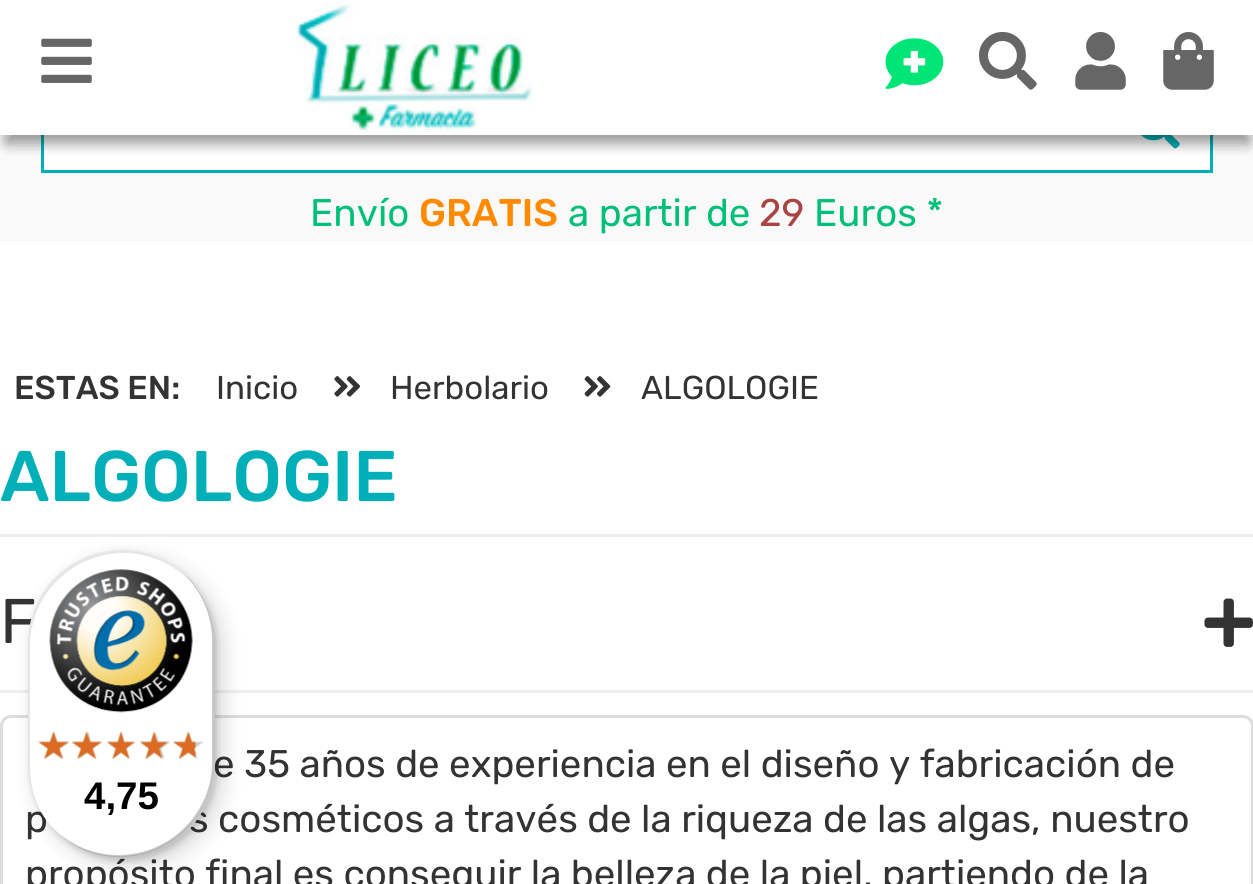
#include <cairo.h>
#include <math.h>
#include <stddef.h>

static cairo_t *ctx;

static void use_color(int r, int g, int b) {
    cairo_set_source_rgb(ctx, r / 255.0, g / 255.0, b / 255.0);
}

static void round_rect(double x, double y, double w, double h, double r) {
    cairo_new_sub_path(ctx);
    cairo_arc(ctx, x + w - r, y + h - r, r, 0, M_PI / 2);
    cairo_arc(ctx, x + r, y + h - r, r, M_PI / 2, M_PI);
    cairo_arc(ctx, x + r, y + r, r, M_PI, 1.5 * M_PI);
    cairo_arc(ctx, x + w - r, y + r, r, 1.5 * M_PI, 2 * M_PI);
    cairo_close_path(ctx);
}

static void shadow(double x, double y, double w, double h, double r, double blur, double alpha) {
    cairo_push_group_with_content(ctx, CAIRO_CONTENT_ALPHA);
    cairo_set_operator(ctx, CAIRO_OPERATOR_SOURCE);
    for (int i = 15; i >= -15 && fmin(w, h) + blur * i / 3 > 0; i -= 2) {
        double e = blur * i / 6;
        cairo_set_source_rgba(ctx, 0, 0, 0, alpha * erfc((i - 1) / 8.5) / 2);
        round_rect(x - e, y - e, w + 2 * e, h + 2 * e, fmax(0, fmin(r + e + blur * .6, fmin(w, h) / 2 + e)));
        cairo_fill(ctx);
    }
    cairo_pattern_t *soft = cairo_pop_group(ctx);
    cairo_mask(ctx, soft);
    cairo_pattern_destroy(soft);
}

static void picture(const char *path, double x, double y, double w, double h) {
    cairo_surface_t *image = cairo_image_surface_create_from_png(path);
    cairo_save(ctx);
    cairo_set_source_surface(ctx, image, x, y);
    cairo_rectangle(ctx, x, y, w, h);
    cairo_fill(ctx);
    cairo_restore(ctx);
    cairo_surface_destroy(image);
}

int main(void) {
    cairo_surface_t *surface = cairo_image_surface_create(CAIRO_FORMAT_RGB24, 1253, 884);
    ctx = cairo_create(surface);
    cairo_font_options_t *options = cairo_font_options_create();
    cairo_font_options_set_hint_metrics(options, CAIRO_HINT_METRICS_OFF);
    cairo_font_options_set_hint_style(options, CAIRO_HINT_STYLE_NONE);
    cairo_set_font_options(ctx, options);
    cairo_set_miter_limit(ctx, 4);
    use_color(255, 255, 255);
    cairo_paint(ctx);
    use_color(249, 249, 249);
    cairo_rectangle(ctx, 0, 135, 1253, 107);
    cairo_fill(ctx);
    use_color(255, 255, 255);
    cairo_rectangle(ctx, 44, 135, 1166, 35);
    cairo_fill(ctx);
    cairo_rectangle(ctx, 42.5, 75.5, 1169, 96);
    use_color(0, 175, 184);
    cairo_set_line_width(ctx, 3);
    cairo_stroke(ctx);
    picture("img1.png", 1141, 135, 39, 14);
    use_color(0, 0, 0);
    shadow(6, 19, 1243, 124, 0, 7, 0.16);
    cairo_select_font_face(ctx, "Rubik Light", CAIRO_FONT_SLANT_NORMAL, CAIRO_FONT_WEIGHT_NORMAL);
    cairo_set_font_size(ctx, 38.5);
    use_color(0, 191, 120);
    cairo_move_to(ctx, 310, 226);
    cairo_show_text(ctx, "Envío");
    cairo_select_font_face(ctx, "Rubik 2 Light", CAIRO_FONT_SLANT_NORMAL, CAIRO_FONT_WEIGHT_NORMAL);
    use_color(255, 138, 0);
    cairo_move_to(ctx, 419, 226);
    cairo_show_text(ctx, "GRATIS");
    cairo_select_font_face(ctx, "Rubik Light", CAIRO_FONT_SLANT_NORMAL, CAIRO_FONT_WEIGHT_NORMAL);
    use_color(0, 191, 120);
    cairo_move_to(ctx, 568, 226);
    cairo_show_text(ctx, "a partir de");
    use_color(169, 68, 66);
    cairo_move_to(ctx, 759, 226);
    cairo_show_text(ctx, "29");
    use_color(0, 191, 120);
    cairo_move_to(ctx, 814, 226);
    cairo_show_text(ctx, "Euros *");
    use_color(0, 0, 0);
    shadow(6, 19, 1243, 124, 0, 7, 0.16);
    shadow(6, 19, 1243, 124, 0, 7, 0.16);
    use_color(255, 255, 255);
    cairo_rectangle(ctx, 0, 5, 1253, 130);
    cairo_fill(ctx);
    picture("img2.png", 41, 38, 51, 45);
    picture("img3.png", 295, 0, 238, 130);
    picture("img4.png", 885, 38, 59, 51);
    picture("img5.png", 979, 32, 58, 58);
    picture("img6.png", 1075, 32, 51, 58);
    picture("img7.png", 1163, 32, 51, 58);
    cairo_select_font_face(ctx, "Rubik 2 Light", CAIRO_FONT_SLANT_NORMAL, CAIRO_FONT_WEIGHT_NORMAL);
    cairo_set_font_size(ctx, 33);
    use_color(51, 51, 51);
    cairo_move_to(ctx, 14, 399);
    cairo_show_text(ctx, "ESTAS EN:");
    cairo_select_font_face(ctx, "Rubik Light", CAIRO_FONT_SLANT_NORMAL, CAIRO_FONT_WEIGHT_NORMAL);
    cairo_move_to(ctx, 216, 399);
    cairo_show_text(ctx, "Inicio");
    picture("img8.png", 334, 376, 26, 21);
    cairo_move_to(ctx, 390, 399);
    cairo_show_text(ctx, "Herbolario");
    picture("img9.png", 584, 376, 27, 21);
    cairo_move_to(ctx, 641, 399);
    cairo_show_text(ctx, "ALGOLOGIE");
    cairo_select_font_face(ctx, "Rubik 2 Light", CAIRO_FONT_SLANT_NORMAL, CAIRO_FONT_WEIGHT_NORMAL);
    cairo_set_font_size(ctx, 71.5);
    use_color(0, 175, 184);
    cairo_move_to(ctx, 0, 501);
    cairo_show_text(ctx, "ALGOLOGIE");
    use_color(238, 238, 238);
    cairo_rectangle(ctx, 0, 534, 1253, 3);
    cairo_fill(ctx);
    cairo_select_font_face(ctx, "Rubik Light", CAIRO_FONT_SLANT_NORMAL, CAIRO_FONT_WEIGHT_NORMAL);
    cairo_set_font_size(ctx, 63);
    use_color(51, 51, 51);
    cairo_move_to(ctx, 0, 643);
    cairo_show_text(ctx, "F");
    picture("img10.png", 1204, 598, 49, 49);
    use_color(238, 238, 238);
    cairo_rectangle(ctx, 0, 690, 1253, 3);
    cairo_fill(ctx);
    round_rect(1.5, 716.5, 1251, 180, 9.5);
    use_color(221, 221, 221);
    cairo_stroke(ctx);
    cairo_set_font_size(ctx, 38.5);
    use_color(51, 51, 51);
    cairo_move_to(ctx, 213, 777);
    cairo_show_text(ctx, "e 35 años de experiencia en el diseño y fabricación de");
    cairo_move_to(ctx, 25, 832);
    cairo_show_text(ctx, "p");
    cairo_move_to(ctx, 189, 832);
    cairo_show_text(ctx, "s cosméticos a través de la riqueza de las algas, nuestro");
    cairo_move_to(ctx, 25, 887);
    cairo_show_text(ctx, "propósito final es conseguir la belleza de la piel, partiendo de la");
    use_color(0, 0, 0);
    shadow(36, 558, 187, 308, 93.5, 11, 0.15);
    shadow(30, 553, 187, 308, 93.5, 3, 0.15);
    use_color(255, 255, 255);
    round_rect(28, 550, 187, 308, 93.5);
    cairo_fill(ctx);
    cairo_set_source_rgba(ctx, 0, 0, 0, 0.1);
    cairo_new_path(ctx);
    cairo_move_to(ctx, 124, 553);
    cairo_curve_to(ctx, 155, 553, 183, 569, 200, 593);
    cairo_curve_to(ctx, 183, 567, 154, 550, 122, 550);
    cairo_curve_to(ctx, 70, 550, 28, 592, 28, 644);
    cairo_line_to(ctx, 28, 764);
    cairo_curve_to(ctx, 28, 786, 35, 805, 47, 821);
    cairo_curve_to(ctx, 36, 806, 30, 787, 30, 767);
    cairo_line_to(ctx, 30, 646);
    cairo_curve_to(ctx, 30, 595, 72, 553, 124, 553);
    cairo_close_path(ctx);
    cairo_fill(ctx);
    cairo_set_source_rgba(ctx, 0, 0, 0, 0.2);
    cairo_new_path(ctx);
    cairo_move_to(ctx, 54, 829);
    cairo_curve_to(ctx, 71, 847, 95, 858, 122, 858);
    cairo_curve_to(ctx, 173, 858, 215, 816, 215, 764);
    cairo_line_to(ctx, 215, 644);
    cairo_curve_to(ctx, 215, 616, 203, 591, 183, 573);
    cairo_curve_to(ctx, 201, 591, 212, 614, 212, 641);
    cairo_line_to(ctx, 212, 762);
    cairo_curve_to(ctx, 212, 813, 170, 855, 118, 855);
    cairo_curve_to(ctx, 93, 855, 71, 845, 54, 829);
    cairo_close_path(ctx);
    cairo_fill(ctx);
    cairo_set_source_rgba(ctx, 0.196, 0.196, 0.196, 0.2);
    cairo_new_path(ctx);
    cairo_move_to(ctx, 55, 830);
    cairo_curve_to(ctx, 72, 847, 95, 858, 122, 858);
    cairo_curve_to(ctx, 173, 858, 215, 816, 215, 764);
    cairo_line_to(ctx, 215, 644);
    cairo_curve_to(ctx, 215, 615, 202, 590, 183, 573);
    cairo_curve_to(ctx, 201, 590, 213, 615, 213, 642);
    cairo_line_to(ctx, 213, 763);
    cairo_curve_to(ctx, 213, 814, 171, 856, 119, 856);
    cairo_curve_to(ctx, 94, 856, 71, 846, 55, 830);
    cairo_close_path(ctx);
    cairo_fill(ctx);
    cairo_set_source_rgba(ctx, 1, 1, 1, 0.3);
    cairo_new_path(ctx);
    cairo_move_to(ctx, 73, 845);
    cairo_curve_to(ctx, 87, 853, 104, 858, 122, 858);
    cairo_curve_to(ctx, 173, 858, 215, 816, 215, 764);
    cairo_line_to(ctx, 215, 644);
    cairo_curve_to(ctx, 215, 610, 197, 581, 171, 564);
    cairo_curve_to(ctx, 196, 581, 213, 609, 213, 642);
    cairo_line_to(ctx, 213, 763);
    cairo_curve_to(ctx, 213, 815, 171, 857, 120, 857);
    cairo_curve_to(ctx, 103, 857, 87, 853, 73, 845);
    cairo_close_path(ctx);
    cairo_fill(ctx);
    picture("img11.png", 49, 569, 144, 144);
    picture("img12.png", 38, 732, 31, 27);
    picture("img13.png", 74, 731, 28, 28);
    picture("img14.png", 107, 732, 28, 27);
    picture("img15.png", 140, 731, 30, 28);
    picture("img16.png", 173, 732, 31, 27);
    picture("img17.png", 38, 731, 31, 28);
    picture("img18.png", 71, 731, 31, 28);
    picture("img19.png", 107, 731, 28, 28);
    picture("img20.png", 140, 731, 28, 28);
    picture("img21.png", 173, 731, 23, 28);
    cairo_select_font_face(ctx, "Liberation Sans", CAIRO_FONT_SLANT_NORMAL, CAIRO_FONT_WEIGHT_BOLD);
    use_color(0, 0, 0);
    cairo_move_to(ctx, 84, 809);
    cairo_show_text(ctx, "4,75");
    cairo_surface_write_to_png(surface, "result.png");
    cairo_font_options_destroy(options);
    cairo_destroy(ctx);
    cairo_surface_destroy(surface);
    return 0;
}
